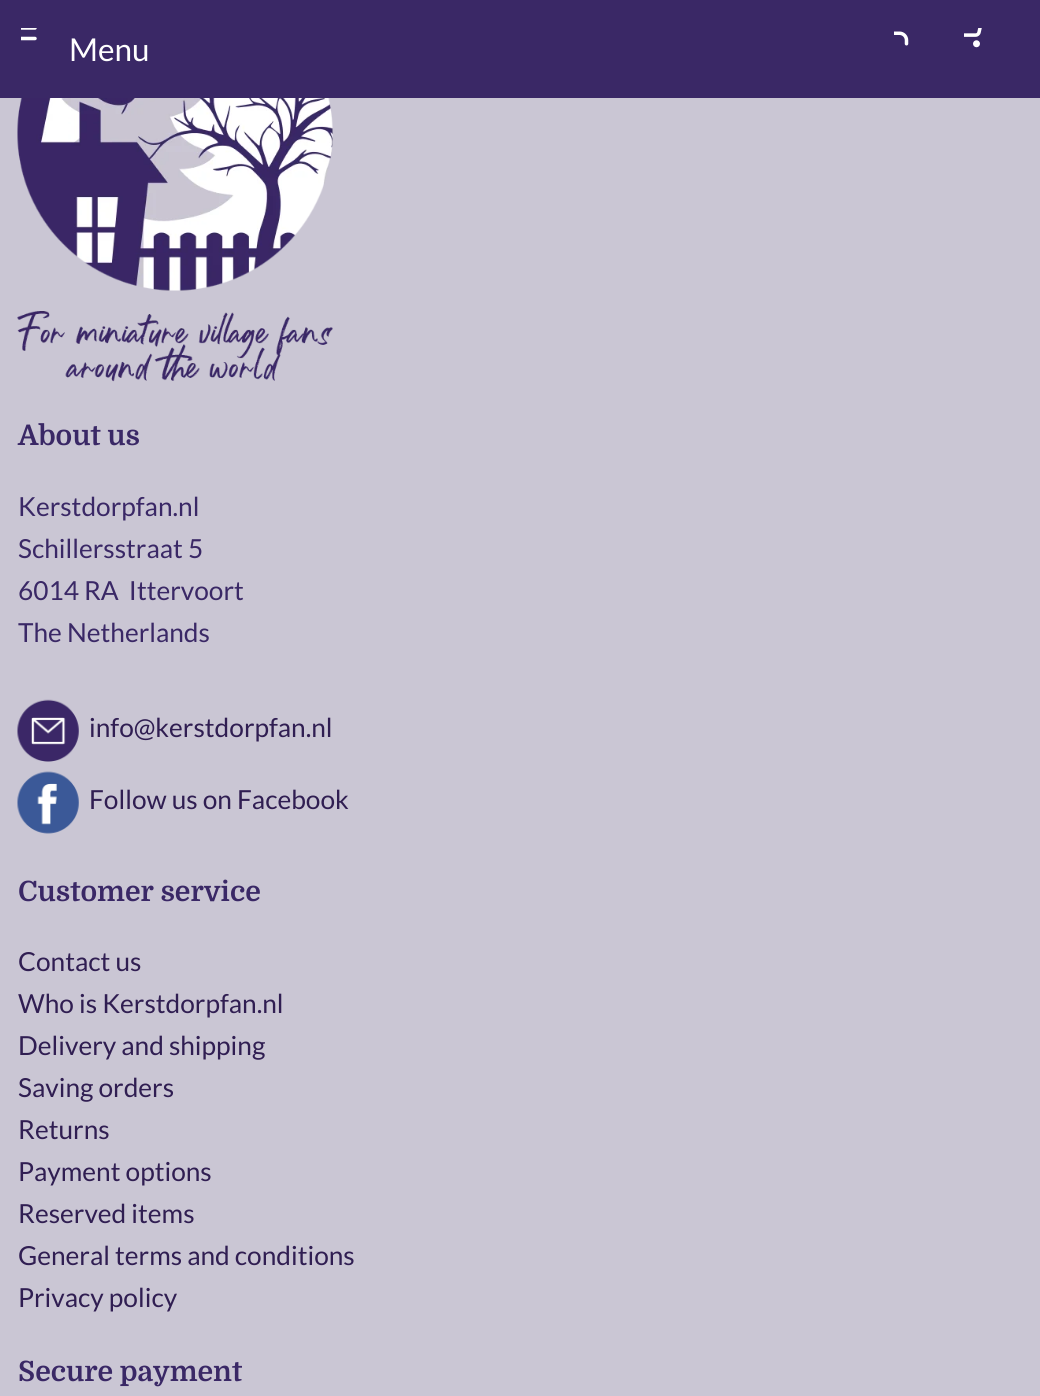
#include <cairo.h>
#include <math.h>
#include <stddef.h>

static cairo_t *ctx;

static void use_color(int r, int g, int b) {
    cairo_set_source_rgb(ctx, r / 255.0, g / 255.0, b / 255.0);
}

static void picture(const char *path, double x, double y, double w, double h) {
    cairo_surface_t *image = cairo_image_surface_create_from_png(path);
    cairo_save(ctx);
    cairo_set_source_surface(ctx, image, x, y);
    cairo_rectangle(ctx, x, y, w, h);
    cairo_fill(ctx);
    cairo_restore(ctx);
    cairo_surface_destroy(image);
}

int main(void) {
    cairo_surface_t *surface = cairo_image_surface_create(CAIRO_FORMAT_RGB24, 1040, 1396);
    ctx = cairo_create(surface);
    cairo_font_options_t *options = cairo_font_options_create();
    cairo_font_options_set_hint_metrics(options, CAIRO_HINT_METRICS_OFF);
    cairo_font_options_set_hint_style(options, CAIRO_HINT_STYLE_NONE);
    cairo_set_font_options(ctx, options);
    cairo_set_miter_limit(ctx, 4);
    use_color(202, 198, 212);
    cairo_paint(ctx);
    use_color(58, 40, 102);
    cairo_rectangle(ctx, 0, 0, 1040, 98);
    cairo_fill(ctx);
    picture("img1.png", 21, 28, 16, 13);
    cairo_select_font_face(ctx, "Lato", CAIRO_FONT_SLANT_NORMAL, CAIRO_FONT_WEIGHT_NORMAL);
    cairo_set_font_size(ctx, 31.5);
    use_color(255, 255, 255);
    cairo_move_to(ctx, 69, 61);
    cairo_show_text(ctx, "Menu");
    picture("img2.png", 894, 31, 15, 15);
    picture("img3.png", 964, 28, 18, 20);
    picture("img4.png", 17, 98, 316, 284);
    cairo_select_font_face(ctx, "Domine", CAIRO_FONT_SLANT_NORMAL, CAIRO_FONT_WEIGHT_BOLD);
    cairo_set_font_size(ctx, 28);
    use_color(58, 40, 102);
    cairo_move_to(ctx, 18, 445);
    cairo_show_text(ctx, "About us");
    cairo_select_font_face(ctx, "Lato", CAIRO_FONT_SLANT_NORMAL, CAIRO_FONT_WEIGHT_NORMAL);
    cairo_set_font_size(ctx, 26.25);
    cairo_move_to(ctx, 18, 516);
    cairo_show_text(ctx, "Kerstdorpfan.nl");
    cairo_move_to(ctx, 18, 558);
    cairo_show_text(ctx, "Schillersstraat 5");
    cairo_move_to(ctx, 18, 600);
    cairo_show_text(ctx, "6014 RA  Ittervoort");
    cairo_move_to(ctx, 18, 642);
    cairo_show_text(ctx, "The Netherlands");
    picture("img5.png", 17, 699, 62, 63);
    use_color(48, 30, 82);
    cairo_move_to(ctx, 89, 737);
    cairo_show_text(ctx, "info@kerstdorpfan.nl");
    picture("img6.png", 17, 771, 62, 63);
    cairo_move_to(ctx, 89, 809);
    cairo_show_text(ctx, "Follow us on Facebook");
    cairo_select_font_face(ctx, "Domine", CAIRO_FONT_SLANT_NORMAL, CAIRO_FONT_WEIGHT_BOLD);
    cairo_set_font_size(ctx, 28);
    use_color(58, 40, 102);
    cairo_move_to(ctx, 18, 901);
    cairo_show_text(ctx, "Customer service");
    cairo_select_font_face(ctx, "Lato", CAIRO_FONT_SLANT_NORMAL, CAIRO_FONT_WEIGHT_NORMAL);
    cairo_set_font_size(ctx, 26.25);
    use_color(48, 30, 82);
    cairo_move_to(ctx, 18, 971);
    cairo_show_text(ctx, "Contact us");
    cairo_move_to(ctx, 18, 1013);
    cairo_show_text(ctx, "Who is Kerstdorpfan.nl");
    cairo_move_to(ctx, 18, 1055);
    cairo_show_text(ctx, "Delivery and shipping");
    cairo_move_to(ctx, 18, 1097);
    cairo_show_text(ctx, "Saving orders");
    cairo_move_to(ctx, 18, 1139);
    cairo_show_text(ctx, "Returns");
    cairo_move_to(ctx, 18, 1181);
    cairo_show_text(ctx, "Payment options");
    cairo_move_to(ctx, 18, 1223);
    cairo_show_text(ctx, "Reserved items");
    cairo_move_to(ctx, 18, 1265);
    cairo_show_text(ctx, "General terms and conditions");
    cairo_move_to(ctx, 18, 1307);
    cairo_show_text(ctx, "Privacy policy");
    cairo_select_font_face(ctx, "Domine", CAIRO_FONT_SLANT_NORMAL, CAIRO_FONT_WEIGHT_BOLD);
    cairo_set_font_size(ctx, 28);
    use_color(58, 40, 102);
    cairo_move_to(ctx, 18, 1381);
    cairo_show_text(ctx, "Secure payment");
    cairo_surface_write_to_png(surface, "result.png");
    cairo_font_options_destroy(options);
    cairo_destroy(ctx);
    cairo_surface_destroy(surface);
    return 0;
}
